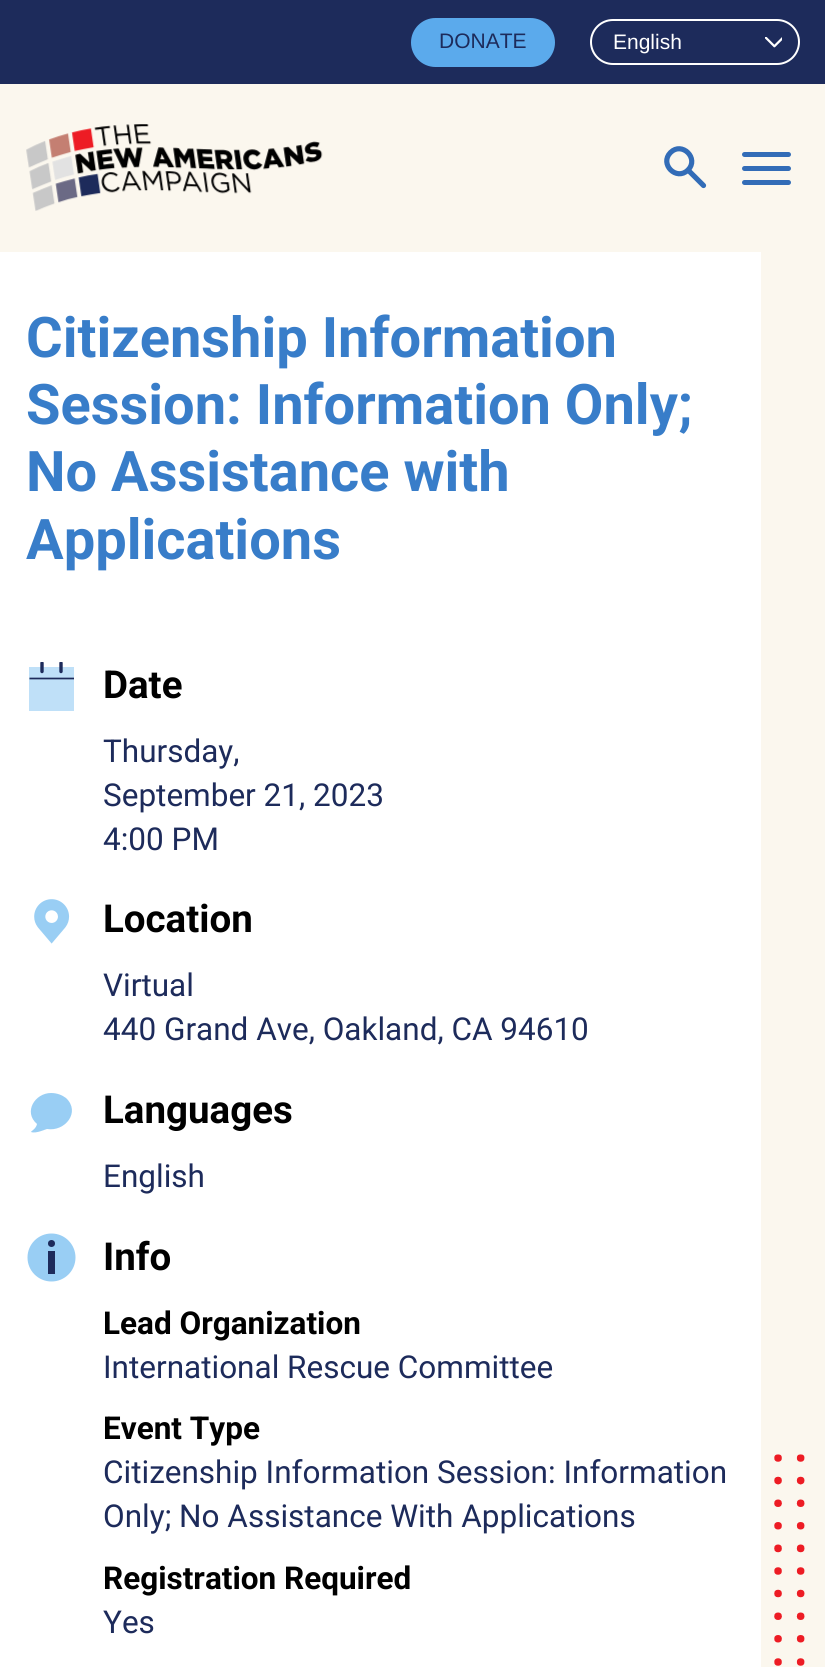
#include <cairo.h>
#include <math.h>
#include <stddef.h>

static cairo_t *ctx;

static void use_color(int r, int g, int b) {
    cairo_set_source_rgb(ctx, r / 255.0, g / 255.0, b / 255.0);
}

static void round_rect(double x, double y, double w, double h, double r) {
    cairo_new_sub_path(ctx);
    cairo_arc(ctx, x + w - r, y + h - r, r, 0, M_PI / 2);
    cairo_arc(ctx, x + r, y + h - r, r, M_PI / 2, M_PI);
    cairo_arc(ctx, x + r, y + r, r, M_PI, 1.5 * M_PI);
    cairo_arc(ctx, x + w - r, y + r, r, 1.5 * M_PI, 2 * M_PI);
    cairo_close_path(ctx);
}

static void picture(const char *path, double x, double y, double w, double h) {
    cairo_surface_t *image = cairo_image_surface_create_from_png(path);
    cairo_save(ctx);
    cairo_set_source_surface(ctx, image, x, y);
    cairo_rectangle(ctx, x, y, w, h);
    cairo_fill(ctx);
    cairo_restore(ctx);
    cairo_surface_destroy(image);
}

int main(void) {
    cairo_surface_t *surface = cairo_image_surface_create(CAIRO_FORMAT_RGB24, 825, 1667);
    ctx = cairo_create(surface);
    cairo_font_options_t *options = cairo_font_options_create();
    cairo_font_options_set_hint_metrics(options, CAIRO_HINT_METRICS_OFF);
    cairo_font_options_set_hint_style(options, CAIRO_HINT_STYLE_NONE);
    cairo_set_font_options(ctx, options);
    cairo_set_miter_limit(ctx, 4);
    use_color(251, 247, 238);
    cairo_paint(ctx);
    use_color(29, 43, 91);
    cairo_rectangle(ctx, 0, 0, 825, 84);
    cairo_fill(ctx);
    use_color(91, 170, 236);
    round_rect(412, 19, 142, 47, 23.5);
    cairo_fill_preserve(ctx);
    cairo_stroke(ctx);
    cairo_select_font_face(ctx, "Liberation Sans", CAIRO_FONT_SLANT_NORMAL, CAIRO_FONT_WEIGHT_NORMAL);
    cairo_set_font_size(ctx, 21);
    use_color(29, 43, 91);
    cairo_move_to(ctx, 439, 48);
    cairo_show_text(ctx, "DONATE");
    round_rect(591, 20, 208, 44, 22);
    use_color(255, 255, 255);
    cairo_stroke(ctx);
    cairo_move_to(ctx, 613, 49);
    cairo_show_text(ctx, "English");
    picture("img1.png", 765, 37, 17, 11);
    picture("img2.png", 26, 124, 297, 87);
    cairo_new_path(ctx);
    cairo_move_to(ctx, 670.5, 152.5);
    cairo_curve_to(ctx, 682, 141, 699.5, 158.5, 688, 170);
    cairo_curve_to(ctx, 676.5, 181.5, 659, 164, 670.5, 152.5);
    cairo_close_path(ctx);
    use_color(50, 108, 183);
    cairo_set_line_width(ctx, 5.2);
    cairo_stroke(ctx);
    cairo_new_path(ctx);
    cairo_move_to(ctx, 690, 172);
    cairo_line_to(ctx, 703.5, 185.5);
    cairo_set_line_cap(ctx, CAIRO_LINE_CAP_ROUND);
    cairo_stroke(ctx);
    round_rect(742, 166, 49, 5, 2.5);
    cairo_fill(ctx);
    round_rect(742, 152, 49, 5, 2.5);
    cairo_fill(ctx);
    round_rect(742, 180, 49, 5, 2.5);
    cairo_fill(ctx);
    use_color(255, 255, 255);
    cairo_rectangle(ctx, 0, 252, 761, 1415);
    cairo_fill(ctx);
    cairo_select_font_face(ctx, "Roboto", CAIRO_FONT_SLANT_NORMAL, CAIRO_FONT_WEIGHT_BOLD);
    cairo_set_font_size(ctx, 56);
    use_color(56, 125, 201);
    cairo_move_to(ctx, 26, 357);
    cairo_show_text(ctx, "Citizenship Information");
    cairo_move_to(ctx, 26, 424);
    cairo_show_text(ctx, "Session: Information Only;");
    cairo_move_to(ctx, 26, 491);
    cairo_show_text(ctx, "No Assistance with");
    cairo_move_to(ctx, 26, 559);
    cairo_show_text(ctx, "Applications");
    use_color(191, 224, 248);
    cairo_rectangle(ctx, 29, 667, 45, 44);
    cairo_fill(ctx);
    cairo_save(ctx);
    cairo_rectangle(ctx, 26, 662, 51, 50);
    cairo_clip(ctx);
    cairo_new_path(ctx);
    cairo_move_to(ctx, 42, 663);
    cairo_line_to(ctx, 42, 671.5);
    cairo_move_to(ctx, 61, 663);
    cairo_line_to(ctx, 61, 671.5);
    use_color(29, 43, 91);
    cairo_set_line_width(ctx, 3.4);
    cairo_stroke(ctx);
    cairo_restore(ctx);
    cairo_new_path(ctx);
    cairo_move_to(ctx, 29.5, 678.5);
    cairo_line_to(ctx, 74, 678.5);
    use_color(29, 43, 91);
    cairo_set_line_width(ctx, 1.7);
    cairo_set_line_cap(ctx, CAIRO_LINE_CAP_BUTT);
    cairo_stroke(ctx);
    cairo_set_font_size(ctx, 38.5);
    use_color(0, 0, 0);
    cairo_move_to(ctx, 103, 698);
    cairo_show_text(ctx, "Date");
    cairo_select_font_face(ctx, "Roboto", CAIRO_FONT_SLANT_NORMAL, CAIRO_FONT_WEIGHT_NORMAL);
    cairo_set_font_size(ctx, 31.5);
    use_color(29, 43, 91);
    cairo_move_to(ctx, 103, 762);
    cairo_show_text(ctx, "Thursday,");
    cairo_move_to(ctx, 103, 806);
    cairo_show_text(ctx, "September 21, 2023");
    cairo_move_to(ctx, 103, 850);
    cairo_show_text(ctx, "4:00 PM");
    picture("img3.png", 34, 899, 36, 45);
    cairo_select_font_face(ctx, "Roboto", CAIRO_FONT_SLANT_NORMAL, CAIRO_FONT_WEIGHT_BOLD);
    cairo_set_font_size(ctx, 38.5);
    use_color(0, 0, 0);
    cairo_move_to(ctx, 103, 932);
    cairo_show_text(ctx, "Location");
    cairo_select_font_face(ctx, "Roboto", CAIRO_FONT_SLANT_NORMAL, CAIRO_FONT_WEIGHT_NORMAL);
    cairo_set_font_size(ctx, 31.5);
    use_color(29, 43, 91);
    cairo_move_to(ctx, 103, 996);
    cairo_show_text(ctx, "Virtual");
    cairo_move_to(ctx, 103, 1040);
    cairo_show_text(ctx, "440 Grand Ave, Oakland, CA 94610");
    use_color(153, 206, 244);
    cairo_new_path(ctx);
    cairo_move_to(ctx, 51, 1093);
    cairo_curve_to(ctx, 35, 1093, 23, 1112, 37, 1124);
    cairo_curve_to(ctx, 36, 1129, 31, 1131, 31, 1132);
    cairo_curve_to(ctx, 36, 1134, 46, 1129, 47, 1129);
    cairo_curve_to(ctx, 65, 1132, 81, 1112, 66, 1098);
    cairo_curve_to(ctx, 62, 1095, 57, 1093, 51, 1093);
    cairo_close_path(ctx);
    cairo_fill(ctx);
    cairo_select_font_face(ctx, "Roboto", CAIRO_FONT_SLANT_NORMAL, CAIRO_FONT_WEIGHT_BOLD);
    cairo_set_font_size(ctx, 38.5);
    use_color(0, 0, 0);
    cairo_move_to(ctx, 103, 1123);
    cairo_show_text(ctx, "Languages");
    cairo_select_font_face(ctx, "Roboto", CAIRO_FONT_SLANT_NORMAL, CAIRO_FONT_WEIGHT_NORMAL);
    cairo_set_font_size(ctx, 31.5);
    use_color(29, 43, 91);
    cairo_move_to(ctx, 103, 1187);
    cairo_show_text(ctx, "English");
    use_color(153, 206, 244);
    cairo_new_path(ctx);
    cairo_arc(ctx, 51.5, 1257.5, 24, 0, 2 * M_PI);
    cairo_fill(ctx);
    use_color(29, 43, 91);
    cairo_arc(ctx, 51.5, 1243.5, 3.5, 0, 2 * M_PI);
    cairo_fill(ctx);
    cairo_rectangle(ctx, 48, 1251, 7, 23);
    cairo_fill(ctx);
    cairo_select_font_face(ctx, "Roboto", CAIRO_FONT_SLANT_NORMAL, CAIRO_FONT_WEIGHT_BOLD);
    cairo_set_font_size(ctx, 38.5);
    use_color(0, 0, 0);
    cairo_move_to(ctx, 103, 1270);
    cairo_show_text(ctx, "Info");
    cairo_set_font_size(ctx, 31.5);
    cairo_move_to(ctx, 103, 1334);
    cairo_show_text(ctx, "Lead Organization");
    cairo_select_font_face(ctx, "Roboto", CAIRO_FONT_SLANT_NORMAL, CAIRO_FONT_WEIGHT_NORMAL);
    use_color(29, 43, 91);
    cairo_move_to(ctx, 103, 1378);
    cairo_show_text(ctx, "International Rescue Committee");
    cairo_select_font_face(ctx, "Roboto", CAIRO_FONT_SLANT_NORMAL, CAIRO_FONT_WEIGHT_BOLD);
    use_color(0, 0, 0);
    cairo_move_to(ctx, 103, 1439);
    cairo_show_text(ctx, "Event Type");
    cairo_select_font_face(ctx, "Roboto", CAIRO_FONT_SLANT_NORMAL, CAIRO_FONT_WEIGHT_NORMAL);
    use_color(29, 43, 91);
    cairo_move_to(ctx, 103, 1483);
    cairo_show_text(ctx, "Citizenship Information Session: Information");
    cairo_move_to(ctx, 103, 1527);
    cairo_show_text(ctx, "Only; No Assistance With Applications");
    cairo_select_font_face(ctx, "Roboto", CAIRO_FONT_SLANT_NORMAL, CAIRO_FONT_WEIGHT_BOLD);
    use_color(0, 0, 0);
    cairo_move_to(ctx, 103, 1589);
    cairo_show_text(ctx, "Registration Required");
    cairo_select_font_face(ctx, "Roboto", CAIRO_FONT_SLANT_NORMAL, CAIRO_FONT_WEIGHT_NORMAL);
    use_color(29, 43, 91);
    cairo_move_to(ctx, 103, 1633);
    cairo_show_text(ctx, "Yes");
    picture("img4.png", 774, 1454, 31, 212);
    cairo_surface_write_to_png(surface, "result.png");
    cairo_font_options_destroy(options);
    cairo_destroy(ctx);
    cairo_surface_destroy(surface);
    return 0;
}
